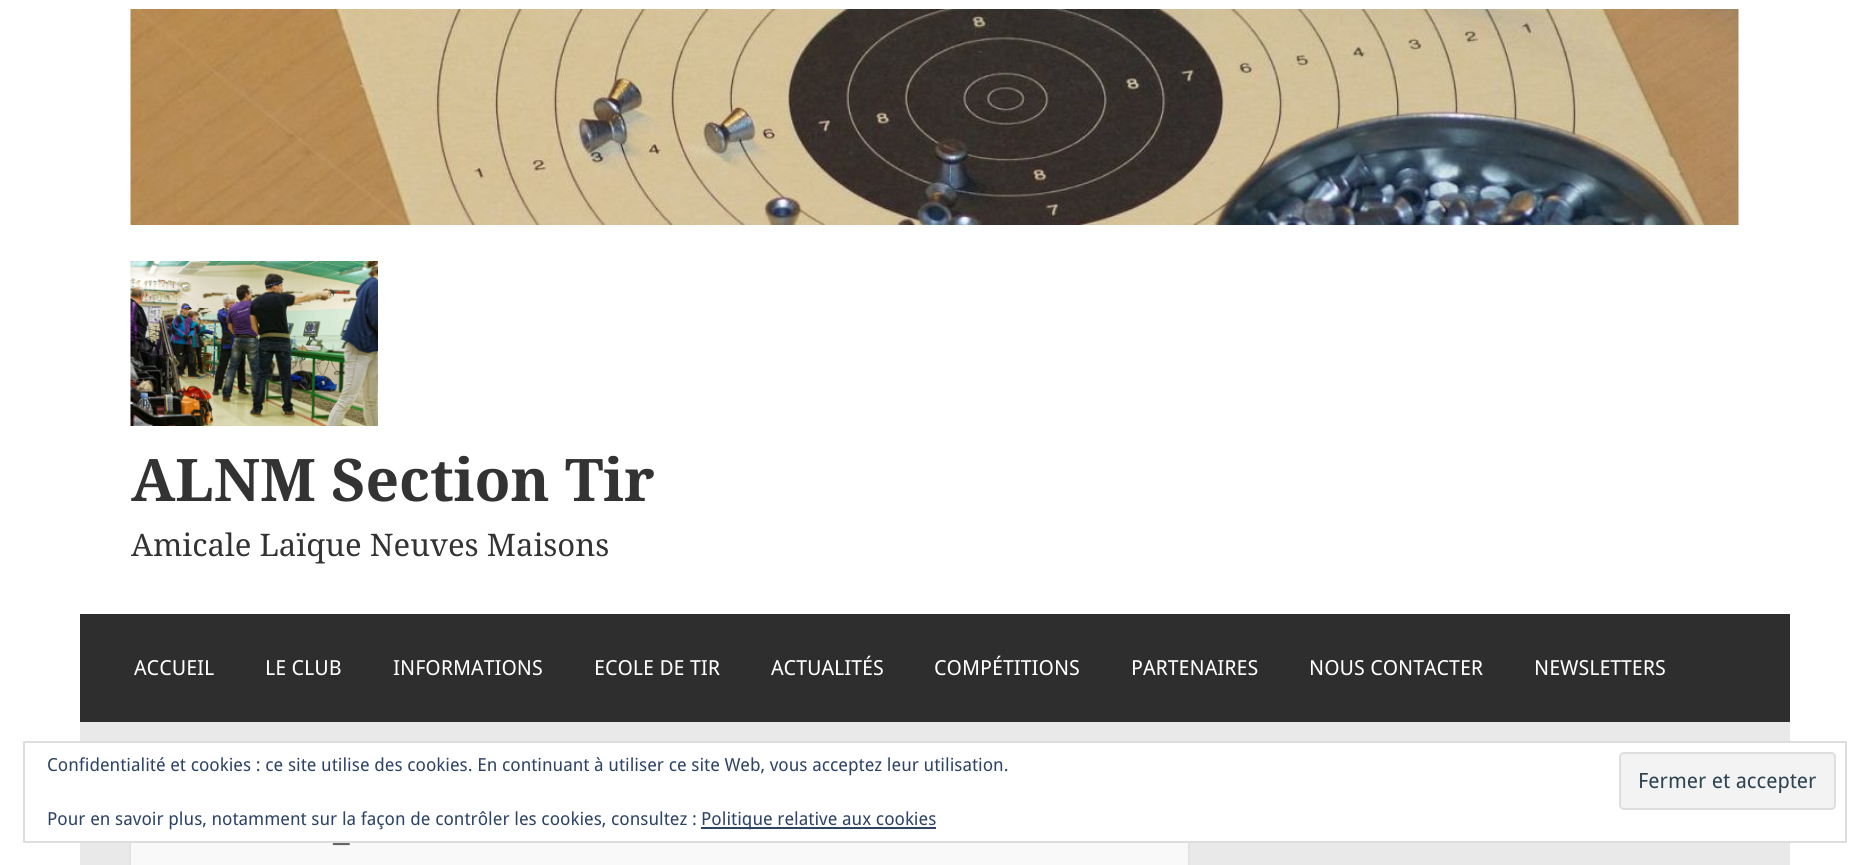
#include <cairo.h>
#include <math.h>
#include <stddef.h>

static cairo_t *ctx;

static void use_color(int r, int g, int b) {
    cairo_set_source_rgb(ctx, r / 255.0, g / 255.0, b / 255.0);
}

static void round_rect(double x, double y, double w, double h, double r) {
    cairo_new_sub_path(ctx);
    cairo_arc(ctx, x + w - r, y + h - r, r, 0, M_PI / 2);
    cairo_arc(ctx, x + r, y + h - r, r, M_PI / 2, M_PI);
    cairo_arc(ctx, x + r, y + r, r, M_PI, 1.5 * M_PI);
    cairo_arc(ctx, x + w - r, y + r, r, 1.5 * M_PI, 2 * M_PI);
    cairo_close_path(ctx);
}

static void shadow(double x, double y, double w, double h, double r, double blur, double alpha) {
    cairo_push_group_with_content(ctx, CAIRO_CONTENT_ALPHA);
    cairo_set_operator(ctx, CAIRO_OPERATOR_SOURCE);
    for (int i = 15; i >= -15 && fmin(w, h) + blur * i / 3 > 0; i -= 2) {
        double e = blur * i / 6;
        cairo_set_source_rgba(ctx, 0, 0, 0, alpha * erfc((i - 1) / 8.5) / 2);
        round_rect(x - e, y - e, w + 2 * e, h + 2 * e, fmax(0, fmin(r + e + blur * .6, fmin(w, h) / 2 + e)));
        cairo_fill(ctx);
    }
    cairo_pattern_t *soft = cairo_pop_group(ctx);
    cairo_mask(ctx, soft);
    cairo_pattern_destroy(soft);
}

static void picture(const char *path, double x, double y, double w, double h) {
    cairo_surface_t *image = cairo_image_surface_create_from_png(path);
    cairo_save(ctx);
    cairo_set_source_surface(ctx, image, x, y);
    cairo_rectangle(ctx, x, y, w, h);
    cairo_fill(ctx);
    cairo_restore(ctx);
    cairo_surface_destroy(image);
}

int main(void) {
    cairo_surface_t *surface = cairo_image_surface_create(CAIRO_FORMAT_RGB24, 1869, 865);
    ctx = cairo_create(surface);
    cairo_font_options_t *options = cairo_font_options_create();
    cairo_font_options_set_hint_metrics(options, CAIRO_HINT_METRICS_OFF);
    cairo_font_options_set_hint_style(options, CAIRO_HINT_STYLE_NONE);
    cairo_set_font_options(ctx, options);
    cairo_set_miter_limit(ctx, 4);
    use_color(255, 255, 255);
    cairo_paint(ctx);
    picture("img1.png", 130, 9, 1609, 216);
    picture("img2.png", 130, 261, 248, 165);
    cairo_select_font_face(ctx, "Droid Serif", CAIRO_FONT_SLANT_NORMAL, CAIRO_FONT_WEIGHT_BOLD);
    cairo_set_font_size(ctx, 58.75);
    use_color(51, 51, 51);
    cairo_move_to(ctx, 131, 501);
    cairo_show_text(ctx, "ALNM Section Tir");
    cairo_select_font_face(ctx, "Droid Serif", CAIRO_FONT_SLANT_NORMAL, CAIRO_FONT_WEIGHT_NORMAL);
    cairo_set_font_size(ctx, 31.1);
    cairo_move_to(ctx, 131, 556);
    cairo_show_text(ctx, "Amicale Laïque Neuves Maisons");
    use_color(46, 46, 46);
    cairo_rectangle(ctx, 80, 614, 1710, 108);
    cairo_fill(ctx);
    cairo_select_font_face(ctx, "Droid Sans", CAIRO_FONT_SLANT_NORMAL, CAIRO_FONT_WEIGHT_NORMAL);
    cairo_set_font_size(ctx, 20.75);
    use_color(255, 255, 255);
    cairo_move_to(ctx, 134, 675);
    cairo_show_text(ctx, "ACCUEIL");
    cairo_move_to(ctx, 265, 675);
    cairo_show_text(ctx, "LE CLUB");
    cairo_move_to(ctx, 393, 675);
    cairo_show_text(ctx, "INFORMATIONS");
    cairo_move_to(ctx, 594, 675);
    cairo_show_text(ctx, "ECOLE DE TIR");
    cairo_move_to(ctx, 771, 675);
    cairo_show_text(ctx, "ACTUALITÉS");
    cairo_move_to(ctx, 934, 675);
    cairo_show_text(ctx, "COMPÉTITIONS");
    cairo_move_to(ctx, 1131, 675);
    cairo_show_text(ctx, "PARTENAIRES");
    cairo_move_to(ctx, 1309, 675);
    cairo_show_text(ctx, "NOUS CONTACTER");
    cairo_move_to(ctx, 1534, 675);
    cairo_show_text(ctx, "NEWSLETTERS");
    use_color(233, 233, 233);
    cairo_rectangle(ctx, 80, 722, 1710, 143);
    cairo_fill(ctx);
    use_color(0, 0, 0);
    shadow(131, 774, 1057, 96, 0, 1.5, 0.1);
    use_color(249, 249, 249);
    cairo_rectangle(ctx, 131, 843, 1057, 22);
    cairo_fill(ctx);
    cairo_select_font_face(ctx, "Droid Serif", CAIRO_FONT_SLANT_NORMAL, CAIRO_FONT_WEIGHT_NORMAL);
    cairo_set_font_size(ctx, 36);
    use_color(102, 102, 102);
    cairo_move_to(ctx, 333, 840);
    cairo_show_text(ctx, "_");
    use_color(255, 255, 255);
    cairo_rectangle(ctx, 80, 743, 1710, 98);
    cairo_fill(ctx);
    cairo_rectangle(ctx, 24, 742, 1822, 100);
    use_color(222, 222, 222);
    cairo_stroke(ctx);
    cairo_select_font_face(ctx, "Droid Sans", CAIRO_FONT_SLANT_NORMAL, CAIRO_FONT_WEIGHT_NORMAL);
    cairo_set_font_size(ctx, 18);
    use_color(46, 68, 103);
    cairo_move_to(ctx, 47, 771);
    cairo_show_text(ctx, "Confidentialité et cookies : ce site utilise des cookies. En continuant à utiliser ce site Web, vous acceptez leur utilisation.");
    use_color(243, 243, 243);
    round_rect(1620, 753, 215, 56, 4);
    cairo_fill_preserve(ctx);
    use_color(222, 222, 222);
    cairo_stroke(ctx);
    cairo_set_font_size(ctx, 21);
    use_color(46, 68, 83);
    cairo_move_to(ctx, 1638, 788);
    cairo_show_text(ctx, "Fermer et accepter");
    cairo_set_font_size(ctx, 18);
    use_color(46, 68, 103);
    cairo_move_to(ctx, 47, 825);
    cairo_show_text(ctx, "Pour en savoir plus, notamment sur la façon de contrôler les cookies, consultez :");
    cairo_rectangle(ctx, 701, 827, 235, 2);
    cairo_fill(ctx);
    cairo_move_to(ctx, 701, 825);
    cairo_show_text(ctx, "Politique relative aux cookies");
    cairo_surface_write_to_png(surface, "result.png");
    cairo_font_options_destroy(options);
    cairo_destroy(ctx);
    cairo_surface_destroy(surface);
    return 0;
}
